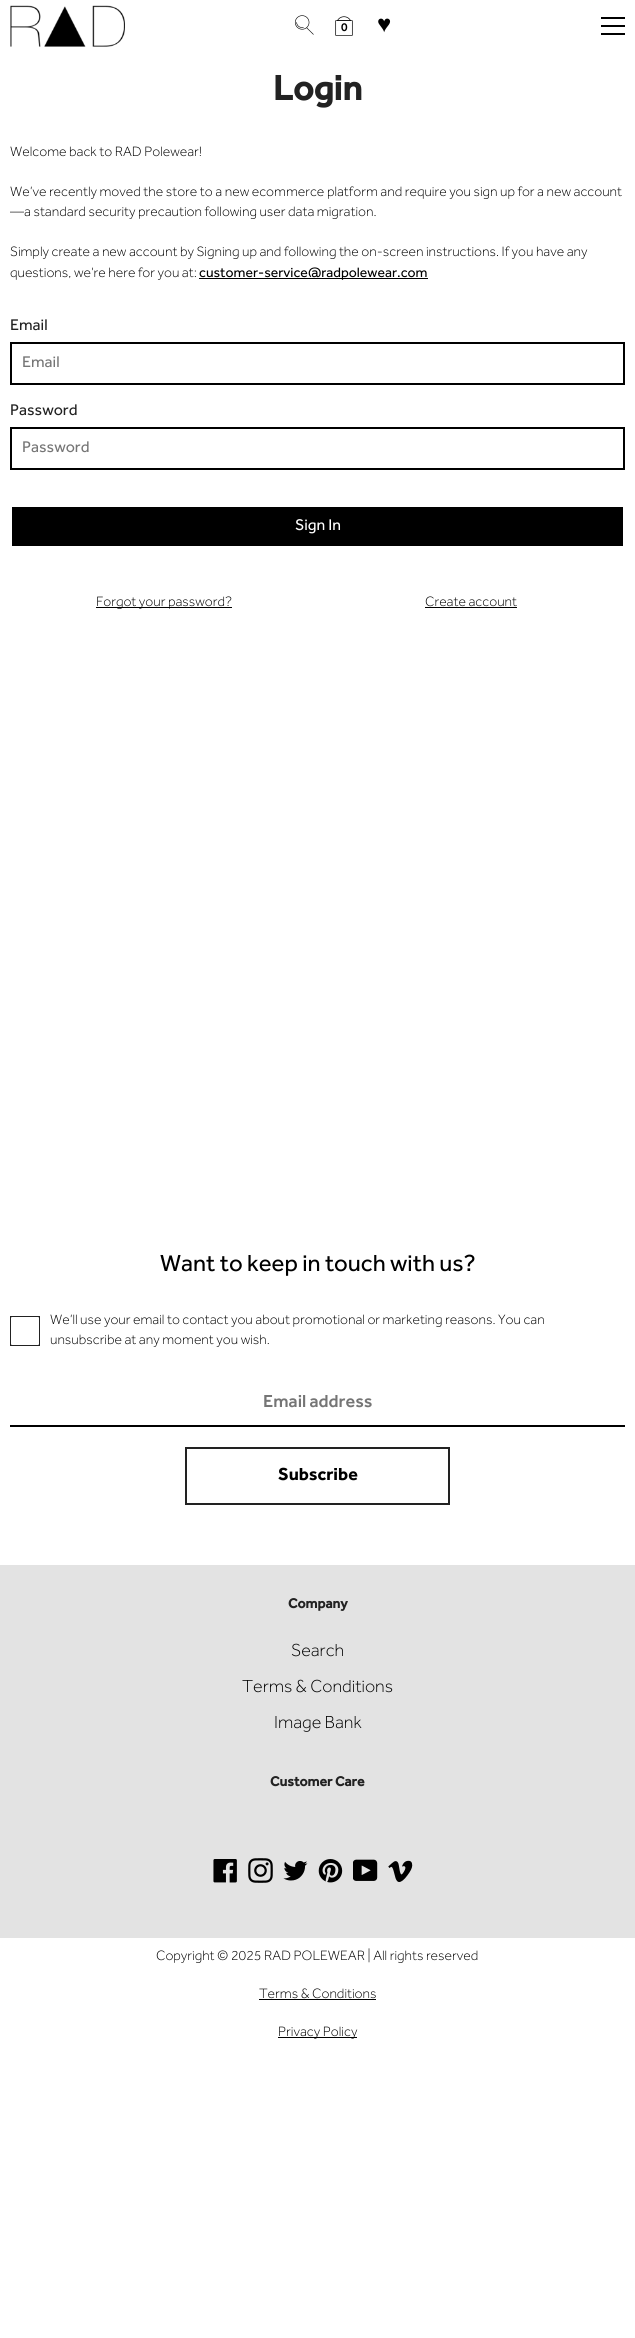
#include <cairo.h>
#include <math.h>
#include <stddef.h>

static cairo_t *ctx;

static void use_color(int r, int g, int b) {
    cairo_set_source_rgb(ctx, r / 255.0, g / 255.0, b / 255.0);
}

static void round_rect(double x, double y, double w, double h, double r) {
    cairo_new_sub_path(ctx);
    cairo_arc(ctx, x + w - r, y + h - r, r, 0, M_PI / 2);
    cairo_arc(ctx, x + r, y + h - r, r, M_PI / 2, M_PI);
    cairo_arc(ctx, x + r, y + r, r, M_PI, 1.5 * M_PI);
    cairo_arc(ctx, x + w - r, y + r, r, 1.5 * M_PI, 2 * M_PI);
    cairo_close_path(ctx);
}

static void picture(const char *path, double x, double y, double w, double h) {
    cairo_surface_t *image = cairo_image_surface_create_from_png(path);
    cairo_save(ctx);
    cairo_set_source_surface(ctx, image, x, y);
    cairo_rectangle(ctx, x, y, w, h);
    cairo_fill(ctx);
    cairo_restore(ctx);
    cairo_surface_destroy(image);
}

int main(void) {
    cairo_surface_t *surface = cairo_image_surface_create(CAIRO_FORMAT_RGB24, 635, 2338);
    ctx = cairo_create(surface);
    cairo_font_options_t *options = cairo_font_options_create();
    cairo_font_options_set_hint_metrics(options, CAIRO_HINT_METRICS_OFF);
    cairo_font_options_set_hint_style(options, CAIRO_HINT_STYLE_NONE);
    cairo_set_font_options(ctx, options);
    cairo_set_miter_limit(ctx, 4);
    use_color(255, 255, 255);
    cairo_paint(ctx);
    picture("img1.png", 10, 5, 115, 42);
    picture("img2.png", 294, 15, 20, 20);
    picture("img3.png", 335, 16, 18, 20);
    cairo_select_font_face(ctx, "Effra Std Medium", CAIRO_FONT_SLANT_NORMAL, CAIRO_FONT_WEIGHT_NORMAL);
    cairo_set_font_size(ctx, 12);
    use_color(0, 0, 0);
    cairo_move_to(ctx, 341, 31);
    cairo_show_text(ctx, "0");
    cairo_select_font_face(ctx, "Liberation Serif", CAIRO_FONT_SLANT_NORMAL, CAIRO_FONT_WEIGHT_NORMAL);
    cairo_set_font_size(ctx, 24);
    cairo_move_to(ctx, 377, 32);
    cairo_show_text(ctx, "♥");
    cairo_rectangle(ctx, 601, 17, 24, 2);
    cairo_fill(ctx);
    cairo_rectangle(ctx, 601, 25, 24, 2);
    cairo_fill(ctx);
    cairo_rectangle(ctx, 601, 33, 24, 2);
    cairo_fill(ctx);
    cairo_select_font_face(ctx, "Effra Std", CAIRO_FONT_SLANT_NORMAL, CAIRO_FONT_WEIGHT_BOLD);
    cairo_set_font_size(ctx, 36);
    use_color(34, 34, 34);
    cairo_move_to(ctx, 273, 100);
    cairo_show_text(ctx, "Login");
    cairo_select_font_face(ctx, "Effra Std Light", CAIRO_FONT_SLANT_NORMAL, CAIRO_FONT_WEIGHT_NORMAL);
    cairo_set_font_size(ctx, 14);
    use_color(0, 0, 0);
    cairo_move_to(ctx, 10, 156);
    cairo_show_text(ctx, "Welcome back to RAD Polewear!");
    cairo_move_to(ctx, 10, 196);
    cairo_show_text(ctx, "We’ve recently moved the store to a new ecommerce platform and require you sign up for a new account");
    cairo_move_to(ctx, 10, 216);
    cairo_show_text(ctx, "—a standard security precaution following user data migration.");
    cairo_move_to(ctx, 10, 256);
    cairo_show_text(ctx, "Simply create a new account by Signing up and following the on-screen instructions. If you have any");
    cairo_move_to(ctx, 10, 277);
    cairo_show_text(ctx, "questions, we’re here for you at:");
    cairo_rectangle(ctx, 199, 278, 229, 1);
    cairo_fill(ctx);
    cairo_select_font_face(ctx, "Effra Std", CAIRO_FONT_SLANT_NORMAL, CAIRO_FONT_WEIGHT_NORMAL);
    cairo_move_to(ctx, 199, 277);
    cairo_show_text(ctx, "customer-service@radpolewear.com");
    cairo_set_font_size(ctx, 16);
    use_color(34, 34, 34);
    cairo_move_to(ctx, 10, 330);
    cairo_show_text(ctx, "Email");
    cairo_rectangle(ctx, 11, 343, 613, 41);
    use_color(0, 0, 0);
    cairo_stroke(ctx);
    use_color(117, 117, 117);
    cairo_move_to(ctx, 22, 367);
    cairo_show_text(ctx, "Email");
    use_color(34, 34, 34);
    cairo_move_to(ctx, 10, 415);
    cairo_show_text(ctx, "Password");
    cairo_rectangle(ctx, 11, 428, 613, 41);
    use_color(0, 0, 0);
    cairo_stroke(ctx);
    use_color(117, 117, 117);
    cairo_move_to(ctx, 22, 452);
    cairo_show_text(ctx, "Password");
    use_color(0, 0, 0);
    cairo_rectangle(ctx, 12, 507, 611, 39);
    cairo_fill(ctx);
    use_color(255, 255, 255);
    cairo_move_to(ctx, 295, 530);
    cairo_show_text(ctx, "Sign In");
    use_color(0, 0, 0);
    cairo_rectangle(ctx, 96, 607, 136, 1);
    cairo_fill(ctx);
    cairo_select_font_face(ctx, "Effra Std Light", CAIRO_FONT_SLANT_NORMAL, CAIRO_FONT_WEIGHT_NORMAL);
    cairo_set_font_size(ctx, 14);
    cairo_move_to(ctx, 96, 606);
    cairo_show_text(ctx, "Forgot your password?");
    cairo_move_to(ctx, 425, 606);
    cairo_show_text(ctx, "Create account");
    cairo_rectangle(ctx, 425, 607, 92, 1);
    cairo_fill(ctx);
    use_color(227, 227, 227);
    cairo_rectangle(ctx, 0, 1565, 635, 373);
    cairo_fill(ctx);
    cairo_select_font_face(ctx, "Effra Std", CAIRO_FONT_SLANT_NORMAL, CAIRO_FONT_WEIGHT_NORMAL);
    cairo_set_font_size(ctx, 24);
    use_color(0, 0, 0);
    cairo_move_to(ctx, 160, 1271);
    cairo_show_text(ctx, "Want to keep in touch with us?");
    cairo_rectangle(ctx, 10.5, 1316.5, 29, 29);
    use_color(34, 34, 34);
    cairo_set_line_width(ctx, 1);
    cairo_stroke(ctx);
    cairo_select_font_face(ctx, "Effra Std Light", CAIRO_FONT_SLANT_NORMAL, CAIRO_FONT_WEIGHT_NORMAL);
    cairo_set_font_size(ctx, 14);
    use_color(0, 0, 0);
    cairo_move_to(ctx, 50, 1324);
    cairo_show_text(ctx, "We’ll use your email to contact you about promotional or marketing reasons. You can");
    cairo_move_to(ctx, 50, 1344);
    cairo_show_text(ctx, "unsubscribe at any moment you wish.");
    round_rect(10.5, 1316.5, 29, 29, 1.5);
    use_color(34, 34, 34);
    cairo_stroke(ctx);
    use_color(0, 0, 0);
    cairo_rectangle(ctx, 10, 1425, 615, 2);
    cairo_fill(ctx);
    cairo_select_font_face(ctx, "Effra Std Medium", CAIRO_FONT_SLANT_NORMAL, CAIRO_FONT_WEIGHT_NORMAL);
    cairo_set_font_size(ctx, 18);
    use_color(117, 117, 117);
    cairo_move_to(ctx, 263, 1407);
    cairo_show_text(ctx, "Email address");
    cairo_rectangle(ctx, 186, 1448, 263, 56);
    use_color(34, 34, 34);
    cairo_set_line_width(ctx, 2);
    cairo_stroke(ctx);
    cairo_select_font_face(ctx, "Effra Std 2", CAIRO_FONT_SLANT_NORMAL, CAIRO_FONT_WEIGHT_BOLD);
    use_color(0, 0, 0);
    cairo_move_to(ctx, 278, 1480);
    cairo_show_text(ctx, "Subscribe");
    cairo_select_font_face(ctx, "Effra Std", CAIRO_FONT_SLANT_NORMAL, CAIRO_FONT_WEIGHT_BOLD);
    cairo_set_font_size(ctx, 14);
    use_color(34, 34, 34);
    cairo_move_to(ctx, 288, 1608);
    cairo_show_text(ctx, "Company");
    cairo_select_font_face(ctx, "Effra Std Light", CAIRO_FONT_SLANT_NORMAL, CAIRO_FONT_WEIGHT_NORMAL);
    cairo_set_font_size(ctx, 18);
    use_color(0, 0, 0);
    cairo_move_to(ctx, 291, 1656);
    cairo_show_text(ctx, "Search");
    cairo_move_to(ctx, 242, 1692);
    cairo_show_text(ctx, "Terms & Conditions");
    cairo_move_to(ctx, 274, 1728);
    cairo_show_text(ctx, "Image Bank");
    cairo_select_font_face(ctx, "Effra Std", CAIRO_FONT_SLANT_NORMAL, CAIRO_FONT_WEIGHT_BOLD);
    cairo_set_font_size(ctx, 14);
    use_color(34, 34, 34);
    cairo_move_to(ctx, 270, 1786);
    cairo_show_text(ctx, "Customer Care");
    picture("img4.png", 213, 1859, 24, 24);
    picture("img5.png", 248, 1858, 25, 25);
    picture("img6.png", 283, 1861, 25, 20);
    picture("img7.png", 318, 1859, 25, 24);
    picture("img8.png", 353, 1859, 25, 22);
    picture("img9.png", 388, 1860, 25, 22);
    cairo_select_font_face(ctx, "Effra Std Light", CAIRO_FONT_SLANT_NORMAL, CAIRO_FONT_WEIGHT_NORMAL);
    use_color(0, 0, 0);
    cairo_move_to(ctx, 156, 1960);
    cairo_show_text(ctx, "Copyright © 2025 RAD POLEWEAR | All rights reserved");
    cairo_move_to(ctx, 259, 1998);
    cairo_show_text(ctx, "Terms & Conditions");
    cairo_rectangle(ctx, 259, 1999, 117, 1);
    cairo_fill(ctx);
    cairo_rectangle(ctx, 278, 2037, 79, 1);
    cairo_fill(ctx);
    cairo_move_to(ctx, 278, 2036);
    cairo_show_text(ctx, "Privacy Policy");
    cairo_surface_write_to_png(surface, "result.png");
    cairo_font_options_destroy(options);
    cairo_destroy(ctx);
    cairo_surface_destroy(surface);
    return 0;
}
